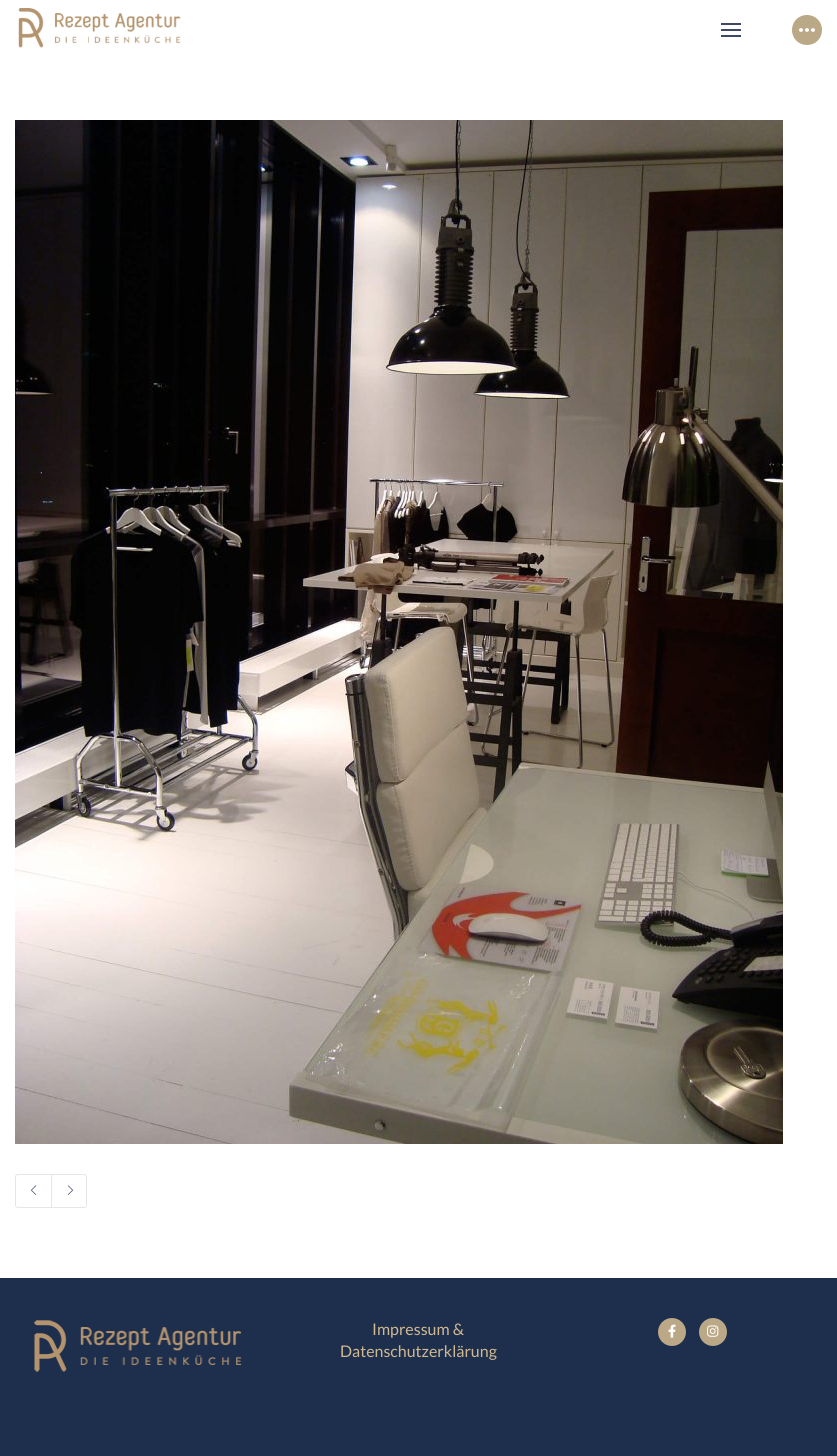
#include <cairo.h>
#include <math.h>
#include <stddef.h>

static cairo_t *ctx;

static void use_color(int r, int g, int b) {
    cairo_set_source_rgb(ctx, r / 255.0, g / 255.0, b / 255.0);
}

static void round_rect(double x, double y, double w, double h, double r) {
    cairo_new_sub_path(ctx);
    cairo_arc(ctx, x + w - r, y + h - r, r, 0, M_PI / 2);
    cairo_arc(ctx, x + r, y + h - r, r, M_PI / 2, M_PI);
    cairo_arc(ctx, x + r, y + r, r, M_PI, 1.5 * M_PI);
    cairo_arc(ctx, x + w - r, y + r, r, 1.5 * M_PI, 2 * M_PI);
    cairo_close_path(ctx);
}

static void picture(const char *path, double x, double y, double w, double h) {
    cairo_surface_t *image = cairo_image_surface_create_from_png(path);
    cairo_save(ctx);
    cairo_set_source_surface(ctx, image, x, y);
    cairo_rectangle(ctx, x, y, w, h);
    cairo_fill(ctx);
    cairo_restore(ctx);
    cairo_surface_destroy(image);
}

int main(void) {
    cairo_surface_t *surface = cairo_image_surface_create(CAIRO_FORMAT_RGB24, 837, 1456);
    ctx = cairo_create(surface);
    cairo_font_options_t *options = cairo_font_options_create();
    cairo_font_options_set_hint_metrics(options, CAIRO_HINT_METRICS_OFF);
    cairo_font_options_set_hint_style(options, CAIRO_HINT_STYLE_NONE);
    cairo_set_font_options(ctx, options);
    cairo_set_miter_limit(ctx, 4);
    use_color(30, 47, 77);
    cairo_paint(ctx);
    use_color(255, 255, 255);
    cairo_rectangle(ctx, 0, 0, 837, 1278);
    cairo_fill(ctx);
    picture("img1.png", 18, 8, 163, 40);
    use_color(63, 73, 101);
    cairo_rectangle(ctx, 721, 29, 20, 2);
    cairo_fill(ctx);
    cairo_rectangle(ctx, 721, 23, 20, 2);
    cairo_fill(ctx);
    cairo_rectangle(ctx, 721, 35, 20, 2);
    cairo_fill(ctx);
    use_color(187, 168, 135);
    cairo_new_path(ctx);
    cairo_move_to(ctx, 822, 30);
    cairo_curve_to(ctx, 822, 38.5, 815.5, 45, 807, 45);
    cairo_curve_to(ctx, 798.5, 45, 792, 38.5, 792, 30);
    cairo_curve_to(ctx, 792, 21.5, 798.5, 15, 807, 15);
    cairo_curve_to(ctx, 815.5, 15, 822, 21.5, 822, 30);
    cairo_close_path(ctx);
    cairo_fill(ctx);
    use_color(255, 255, 255);
    cairo_new_path(ctx);
    cairo_move_to(ctx, 809, 30);
    cairo_curve_to(ctx, 809, 32.5, 805, 32.5, 805, 30);
    cairo_curve_to(ctx, 805, 27.5, 809, 27.5, 809, 30);
    cairo_close_path(ctx);
    cairo_move_to(ctx, 815, 30);
    cairo_curve_to(ctx, 815, 32.5, 811, 32.5, 811, 30);
    cairo_curve_to(ctx, 811, 27.5, 815, 27.5, 815, 30);
    cairo_close_path(ctx);
    cairo_move_to(ctx, 803, 30);
    cairo_curve_to(ctx, 803, 32.5, 799, 32.5, 799, 30);
    cairo_curve_to(ctx, 799, 27.5, 803, 27.5, 803, 30);
    cairo_close_path(ctx);
    cairo_fill(ctx);
    picture("img2.png", 15, 120, 768, 1024);
    round_rect(15.5, 1174.5, 71, 33, 2.5);
    use_color(230, 230, 230);
    cairo_set_line_width(ctx, 1);
    cairo_stroke(ctx);
    cairo_rectangle(ctx, 51, 1175, 1, 32);
    cairo_fill(ctx);
    picture("img3.png", 30, 1185, 7, 10);
    picture("img4.png", 67, 1185, 7, 10);
    picture("img5.png", 34, 1320, 208, 52);
    cairo_select_font_face(ctx, "Lato", CAIRO_FONT_SLANT_NORMAL, CAIRO_FONT_WEIGHT_NORMAL);
    cairo_set_font_size(ctx, 16);
    use_color(208, 185, 144);
    cairo_move_to(ctx, 372, 1335);
    cairo_show_text(ctx, "Impressum &");
    cairo_move_to(ctx, 340, 1357);
    cairo_show_text(ctx, "Datenschutzerklärung");
    use_color(187, 168, 135);
    cairo_new_path(ctx);
    cairo_arc(ctx, 672, 1332, 14, 0, 2 * M_PI);
    cairo_fill(ctx);
    picture("img6.png", 668, 1324, 8, 14);
    cairo_arc(ctx, 713, 1332, 14, 0, 2 * M_PI);
    cairo_fill(ctx);
    picture("img7.png", 707, 1325, 12, 12);
    cairo_surface_write_to_png(surface, "result.png");
    cairo_font_options_destroy(options);
    cairo_destroy(ctx);
    cairo_surface_destroy(surface);
    return 0;
}
